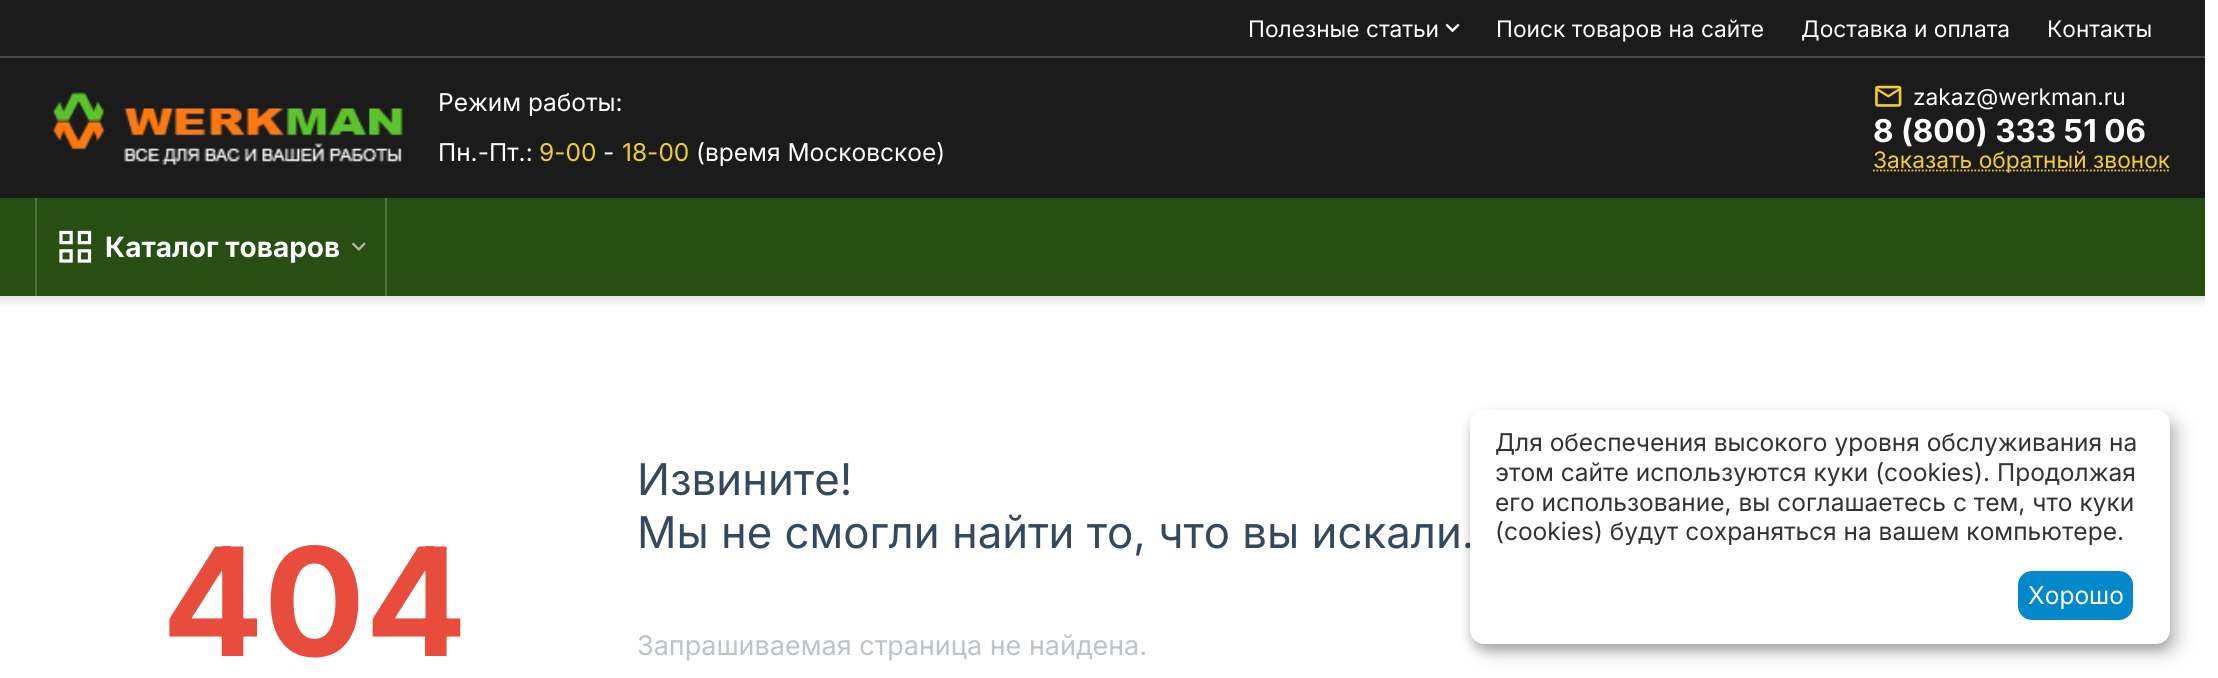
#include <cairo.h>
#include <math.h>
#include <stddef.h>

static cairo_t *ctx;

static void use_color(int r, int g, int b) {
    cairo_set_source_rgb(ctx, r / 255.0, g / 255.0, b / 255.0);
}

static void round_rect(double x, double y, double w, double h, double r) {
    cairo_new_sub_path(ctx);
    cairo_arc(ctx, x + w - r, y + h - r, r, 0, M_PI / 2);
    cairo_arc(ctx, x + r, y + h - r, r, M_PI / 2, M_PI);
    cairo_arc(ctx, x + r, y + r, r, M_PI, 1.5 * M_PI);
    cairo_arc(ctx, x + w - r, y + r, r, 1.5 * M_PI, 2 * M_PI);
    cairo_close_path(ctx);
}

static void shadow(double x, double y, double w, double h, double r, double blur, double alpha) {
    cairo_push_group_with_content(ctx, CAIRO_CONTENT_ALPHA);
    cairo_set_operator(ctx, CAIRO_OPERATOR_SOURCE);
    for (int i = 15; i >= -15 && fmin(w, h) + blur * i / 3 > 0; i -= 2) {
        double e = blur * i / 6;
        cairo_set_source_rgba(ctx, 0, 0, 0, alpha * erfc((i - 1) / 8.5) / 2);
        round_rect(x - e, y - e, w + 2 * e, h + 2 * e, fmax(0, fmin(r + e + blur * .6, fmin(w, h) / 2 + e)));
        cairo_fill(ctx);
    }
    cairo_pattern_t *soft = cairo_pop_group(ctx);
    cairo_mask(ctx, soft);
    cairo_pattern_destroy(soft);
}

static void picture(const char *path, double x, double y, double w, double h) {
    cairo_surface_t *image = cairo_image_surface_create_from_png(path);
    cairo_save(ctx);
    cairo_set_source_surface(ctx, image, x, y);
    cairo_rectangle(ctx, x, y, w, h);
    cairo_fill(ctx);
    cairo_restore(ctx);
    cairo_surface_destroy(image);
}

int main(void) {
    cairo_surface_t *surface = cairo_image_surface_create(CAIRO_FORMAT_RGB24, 2218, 678);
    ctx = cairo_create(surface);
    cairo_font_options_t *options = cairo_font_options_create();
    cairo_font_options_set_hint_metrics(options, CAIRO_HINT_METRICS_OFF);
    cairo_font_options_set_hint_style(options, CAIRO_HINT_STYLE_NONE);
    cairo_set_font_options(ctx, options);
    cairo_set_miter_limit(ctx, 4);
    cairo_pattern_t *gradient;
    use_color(255, 255, 255);
    cairo_paint(ctx);
    use_color(27, 27, 27);
    cairo_rectangle(ctx, 0, 0, 2205, 56);
    cairo_fill(ctx);
    use_color(73, 73, 73);
    cairo_rectangle(ctx, 0, 56, 2205, 2);
    cairo_fill(ctx);
    cairo_select_font_face(ctx, "Inter", CAIRO_FONT_SLANT_NORMAL, CAIRO_FONT_WEIGHT_NORMAL);
    cairo_set_font_size(ctx, 22.75);
    use_color(255, 255, 255);
    cairo_move_to(ctx, 1248, 37);
    cairo_show_text(ctx, "Полезные статьи");
    picture("img1.png", 1445, 23, 15, 10);
    cairo_move_to(ctx, 1496, 37);
    cairo_show_text(ctx, "Поиск товаров на сайте");
    cairo_move_to(ctx, 1801, 37);
    cairo_show_text(ctx, "Доставка и оплата");
    cairo_move_to(ctx, 2047, 37);
    cairo_show_text(ctx, "Контакты");
    use_color(27, 27, 27);
    cairo_rectangle(ctx, 0, 58, 2205, 140);
    cairo_fill(ctx);
    picture("img2.png", 52, 92, 351, 73);
    cairo_set_font_size(ctx, 24.5);
    use_color(255, 255, 255);
    cairo_move_to(ctx, 438, 111);
    cairo_show_text(ctx, "Режим работы:");
    cairo_move_to(ctx, 438, 161);
    cairo_show_text(ctx, "Пн.-Пт.:");
    use_color(242, 204, 51);
    cairo_move_to(ctx, 539, 161);
    cairo_show_text(ctx, "9-00");
    use_color(255, 255, 255);
    cairo_move_to(ctx, 603, 161);
    cairo_show_text(ctx, "-");
    use_color(242, 204, 51);
    cairo_move_to(ctx, 622, 161);
    cairo_show_text(ctx, "18-00");
    use_color(255, 255, 255);
    cairo_move_to(ctx, 696, 161);
    cairo_show_text(ctx, "(время Московское)");
    picture("img3.png", 1875, 85, 27, 22);
    cairo_set_font_size(ctx, 22.75);
    cairo_move_to(ctx, 1913, 105);
    cairo_show_text(ctx, "zakaz@werkman.ru");
    cairo_select_font_face(ctx, "Inter", CAIRO_FONT_SLANT_NORMAL, CAIRO_FONT_WEIGHT_BOLD);
    cairo_set_font_size(ctx, 31.5);
    cairo_move_to(ctx, 1873, 142);
    cairo_show_text(ctx, "8 (800) 333 51 06");
    cairo_new_path(ctx);
    cairo_move_to(ctx, 1873, 170.5);
    cairo_line_to(ctx, 2170, 170.5);
    use_color(242, 204, 51);
    cairo_set_line_width(ctx, 1.8);
    cairo_set_dash(ctx, (double[]){1.75, 1.75}, 2, 0);
    cairo_stroke(ctx);
    cairo_select_font_face(ctx, "Inter", CAIRO_FONT_SLANT_NORMAL, CAIRO_FONT_WEIGHT_NORMAL);
    cairo_set_font_size(ctx, 22.75);
    cairo_move_to(ctx, 1873, 168);
    cairo_show_text(ctx, "Заказать обратный звонок");
    use_color(39, 78, 19);
    cairo_rectangle(ctx, 0, 198, 2205, 98);
    cairo_fill(ctx);
    use_color(82, 113, 66);
    cairo_rectangle(ctx, 385, 198, 2, 98);
    cairo_fill(ctx);
    cairo_rectangle(ctx, 35, 198, 2, 98);
    cairo_fill(ctx);
    picture("img4.png", 59, 230, 33, 33);
    cairo_select_font_face(ctx, "Inter", CAIRO_FONT_SLANT_NORMAL, CAIRO_FONT_WEIGHT_BOLD);
    cairo_set_font_size(ctx, 28);
    use_color(255, 255, 255);
    cairo_move_to(ctx, 105, 257);
    cairo_show_text(ctx, "Каталог товаров");
    picture("img5.png", 351, 242, 15, 9);
    gradient = cairo_pattern_create_linear(1103, 296, 1103, 308);
    cairo_pattern_add_color_stop_rgba(gradient, 0, 0.902, 0.902, 0.902, 1);
    cairo_pattern_add_color_stop_rgba(gradient, 1, 1, 1, 1, 1);
    cairo_set_source(ctx, gradient);
    cairo_pattern_destroy(gradient);
    cairo_rectangle(ctx, 0, 296, 2205, 11);
    cairo_fill(ctx);
    cairo_set_font_size(ctx, 150.5);
    use_color(231, 76, 60);
    cairo_move_to(ctx, 162, 656);
    cairo_show_text(ctx, "404");
    cairo_select_font_face(ctx, "Inter", CAIRO_FONT_SLANT_NORMAL, CAIRO_FONT_WEIGHT_NORMAL);
    cairo_set_font_size(ctx, 43.75);
    use_color(52, 73, 94);
    cairo_move_to(ctx, 637, 495);
    cairo_show_text(ctx, "Извините!");
    cairo_move_to(ctx, 637, 548);
    cairo_show_text(ctx, "Мы не смогли найти то, что вы искали.");
    cairo_set_font_size(ctx, 27);
    use_color(189, 195, 199);
    cairo_move_to(ctx, 637, 655);
    cairo_show_text(ctx, "Запрашиваемая страница не найдена.");
    use_color(0, 0, 0);
    shadow(1479, 418, 700, 235, 14, 9, 0.19);
    shadow(1470, 417, 700, 234, 14, 5, 0.2);
    use_color(255, 255, 255);
    round_rect(1470, 410, 700, 234, 14);
    cairo_fill(ctx);
    cairo_set_font_size(ctx, 24.5);
    use_color(51, 51, 51);
    cairo_move_to(ctx, 1495, 451);
    cairo_show_text(ctx, "Для обеспечения высокого уровня обслуживания на");
    cairo_move_to(ctx, 1495, 481);
    cairo_show_text(ctx, "этом сайте используются куки (cookies). Продолжая");
    cairo_move_to(ctx, 1495, 511);
    cairo_show_text(ctx, "его использование, вы соглашаетесь с тем, что куки");
    cairo_move_to(ctx, 1495, 540);
    cairo_show_text(ctx, "(cookies) будут сохраняться на вашем компьютере.");
    use_color(3, 136, 204);
    round_rect(2018, 571, 115, 49, 14);
    cairo_fill(ctx);
    use_color(255, 255, 255);
    cairo_move_to(ctx, 2028, 604);
    cairo_show_text(ctx, "Хорошо");
    cairo_surface_write_to_png(surface, "result.png");
    cairo_font_options_destroy(options);
    cairo_destroy(ctx);
    cairo_surface_destroy(surface);
    return 0;
}
